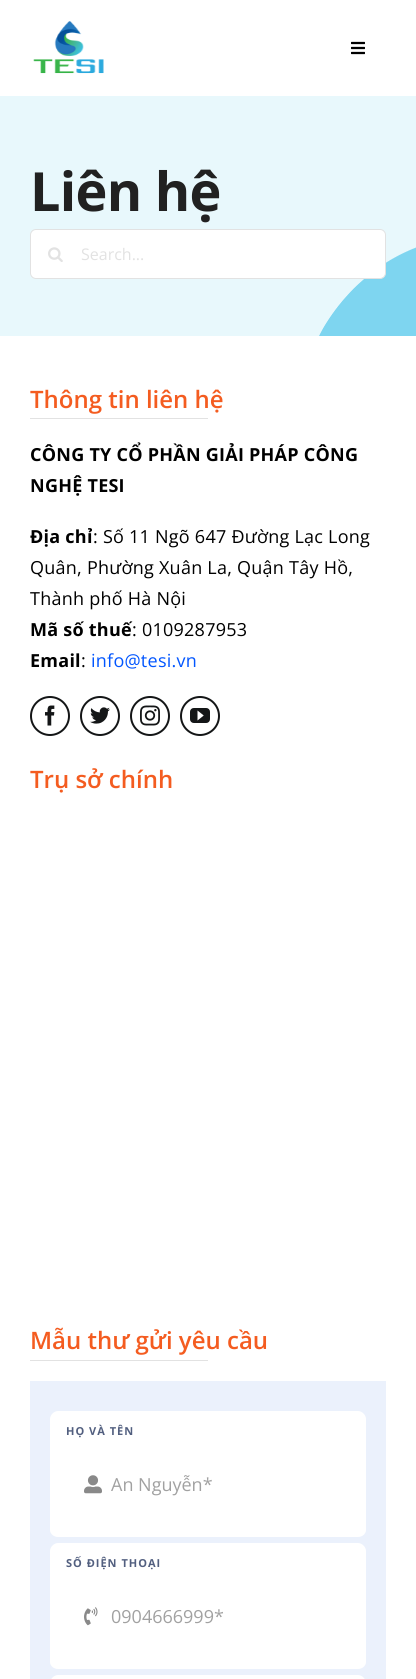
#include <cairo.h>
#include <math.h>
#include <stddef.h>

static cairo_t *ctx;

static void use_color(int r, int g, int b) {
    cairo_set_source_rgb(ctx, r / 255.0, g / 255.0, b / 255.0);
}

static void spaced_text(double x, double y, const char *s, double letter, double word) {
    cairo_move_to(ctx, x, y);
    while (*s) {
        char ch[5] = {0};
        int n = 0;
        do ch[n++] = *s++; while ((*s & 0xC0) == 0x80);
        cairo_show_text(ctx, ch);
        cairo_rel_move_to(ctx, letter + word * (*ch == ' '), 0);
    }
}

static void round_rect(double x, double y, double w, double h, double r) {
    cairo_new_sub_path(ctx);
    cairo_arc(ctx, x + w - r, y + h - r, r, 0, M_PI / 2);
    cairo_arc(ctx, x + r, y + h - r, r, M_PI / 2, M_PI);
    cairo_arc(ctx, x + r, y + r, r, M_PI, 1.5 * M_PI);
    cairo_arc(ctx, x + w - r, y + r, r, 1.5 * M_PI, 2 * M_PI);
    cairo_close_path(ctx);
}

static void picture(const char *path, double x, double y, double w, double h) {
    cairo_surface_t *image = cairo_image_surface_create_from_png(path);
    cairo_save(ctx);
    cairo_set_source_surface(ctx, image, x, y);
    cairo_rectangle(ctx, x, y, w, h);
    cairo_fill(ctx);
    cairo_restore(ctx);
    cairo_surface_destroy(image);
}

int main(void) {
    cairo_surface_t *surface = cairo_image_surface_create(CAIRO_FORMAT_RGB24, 416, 1679);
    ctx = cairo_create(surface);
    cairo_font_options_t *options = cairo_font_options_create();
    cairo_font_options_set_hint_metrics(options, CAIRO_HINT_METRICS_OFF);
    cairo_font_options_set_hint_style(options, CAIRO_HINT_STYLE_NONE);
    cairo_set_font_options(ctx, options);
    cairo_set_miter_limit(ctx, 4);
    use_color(255, 255, 255);
    cairo_paint(ctx);
    picture("img1.png", 33, 21, 71, 53);
    picture("img2.png", 351, 41, 14, 14);
    use_color(232, 248, 252);
    cairo_rectangle(ctx, 0, 96, 416, 240);
    cairo_fill(ctx);
    picture("img3.png", 319, 247, 97, 89);
    cairo_select_font_face(ctx, "Open Sans", CAIRO_FONT_SLANT_NORMAL, CAIRO_FONT_WEIGHT_BOLD);
    cairo_set_font_size(ctx, 54);
    use_color(33, 33, 33);
    spaced_text(30, 211, "Liên hệ", -0.75, 0);
    use_color(255, 255, 255);
    round_rect(30.5, 229.5, 355, 49, 5.5);
    cairo_fill_preserve(ctx);
    use_color(226, 226, 226);
    cairo_set_line_width(ctx, 1);
    cairo_stroke(ctx);
    picture("img4.png", 48, 247, 15, 15);
    cairo_select_font_face(ctx, "Open Sans", CAIRO_FONT_SLANT_NORMAL, CAIRO_FONT_WEIGHT_NORMAL);
    cairo_set_font_size(ctx, 16);
    cairo_move_to(ctx, 81, 260);
    cairo_show_text(ctx, "Search...");
    cairo_select_font_face(ctx, "Open Sans SemiBold", CAIRO_FONT_SLANT_NORMAL, CAIRO_FONT_WEIGHT_NORMAL);
    cairo_set_font_size(ctx, 24);
    use_color(244, 92, 32);
    cairo_move_to(ctx, 30, 408);
    cairo_show_text(ctx, "Thông tin liên hệ");
    use_color(226, 226, 226);
    cairo_rectangle(ctx, 30, 418, 178, 1);
    cairo_fill(ctx);
    cairo_select_font_face(ctx, "Open Sans", CAIRO_FONT_SLANT_NORMAL, CAIRO_FONT_WEIGHT_BOLD);
    cairo_set_font_size(ctx, 18);
    use_color(0, 0, 0);
    spaced_text(30, 461, "CÔNG TY CỔ PHẦN GIẢI PHÁP CÔNG", 0.25, 0);
    spaced_text(30, 492, "NGHỆ TESI", 0.25, 0);
    spaced_text(30, 543, "Địa chỉ", 0.25, 0);
    cairo_select_font_face(ctx, "Open Sans", CAIRO_FONT_SLANT_NORMAL, CAIRO_FONT_WEIGHT_NORMAL);
    spaced_text(93, 543, ": Số 11 Ngõ 647 Đường Lạc Long", 0.25, 0);
    spaced_text(30, 574, "Quân, Phường Xuân La, Quận Tây Hồ,", 0.25, 0);
    spaced_text(30, 605, "Thành phố Hà Nội", 0.25, 0);
    cairo_select_font_face(ctx, "Open Sans", CAIRO_FONT_SLANT_NORMAL, CAIRO_FONT_WEIGHT_BOLD);
    spaced_text(30, 636, "Mã số thuế", 0.25, 0);
    cairo_select_font_face(ctx, "Open Sans", CAIRO_FONT_SLANT_NORMAL, CAIRO_FONT_WEIGHT_NORMAL);
    spaced_text(132, 636, ": 0109287953", 0.25, 0);
    cairo_select_font_face(ctx, "Open Sans", CAIRO_FONT_SLANT_NORMAL, CAIRO_FONT_WEIGHT_BOLD);
    spaced_text(30, 667, "Email", 0.25, 0);
    cairo_select_font_face(ctx, "Open Sans", CAIRO_FONT_SLANT_NORMAL, CAIRO_FONT_WEIGHT_NORMAL);
    spaced_text(81, 667, ":", 0.25, 0);
    use_color(2, 86, 255);
    spaced_text(91, 667, "info@tesi.vn", 0.25, 0);
    cairo_new_path(ctx);
    cairo_arc(ctx, 50, 716, 19, 0, 2 * M_PI);
    use_color(20, 22, 23);
    cairo_set_line_width(ctx, 2);
    cairo_stroke(ctx);
    picture("img5.png", 45, 705, 10, 21);
    cairo_arc(ctx, 100, 716, 19, 0, 2 * M_PI);
    cairo_stroke(ctx);
    picture("img6.png", 90, 707, 20, 17);
    cairo_arc(ctx, 150, 716, 19, 0, 2 * M_PI);
    cairo_stroke(ctx);
    picture("img7.png", 140, 705, 20, 21);
    cairo_arc(ctx, 200, 716, 19, 0, 2 * M_PI);
    cairo_stroke(ctx);
    picture("img8.png", 190, 708, 20, 15);
    cairo_select_font_face(ctx, "Open Sans SemiBold", CAIRO_FONT_SLANT_NORMAL, CAIRO_FONT_WEIGHT_NORMAL);
    cairo_set_font_size(ctx, 24);
    use_color(244, 92, 32);
    cairo_move_to(ctx, 30, 788);
    cairo_show_text(ctx, "Trụ sở chính");
    cairo_move_to(ctx, 30, 1349);
    cairo_show_text(ctx, "Mẫu thư gửi yêu cầu");
    use_color(226, 226, 226);
    cairo_rectangle(ctx, 30, 1360, 178, 1);
    cairo_fill(ctx);
    use_color(235, 241, 252);
    cairo_rectangle(ctx, 30, 1381, 356, 298);
    cairo_fill(ctx);
    use_color(255, 255, 255);
    cairo_new_path(ctx);
    cairo_move_to(ctx, 58, 1411);
    cairo_line_to(ctx, 358, 1411);
    cairo_curve_to(ctx, 362, 1411, 366, 1415, 366, 1419);
    cairo_line_to(ctx, 366, 1530);
    cairo_curve_to(ctx, 366, 1534, 362, 1537, 358, 1537);
    cairo_line_to(ctx, 58, 1537);
    cairo_curve_to(ctx, 54, 1537, 50, 1534, 50, 1530);
    cairo_line_to(ctx, 50, 1419);
    cairo_curve_to(ctx, 50, 1415, 54, 1411, 58, 1411);
    cairo_close_path(ctx);
    cairo_fill(ctx);
    cairo_select_font_face(ctx, "Open Sans", CAIRO_FONT_SLANT_NORMAL, CAIRO_FONT_WEIGHT_BOLD);
    cairo_set_font_size(ctx, 11);
    use_color(82, 95, 127);
    spaced_text(66, 1435, "HỌ VÀ TÊN", 1, 0);
    picture("img9.png", 84, 1475, 18, 19);
    cairo_select_font_face(ctx, "Open Sans", CAIRO_FONT_SLANT_NORMAL, CAIRO_FONT_WEIGHT_NORMAL);
    cairo_set_font_size(ctx, 18);
    use_color(161, 161, 161);
    cairo_move_to(ctx, 111, 1491);
    cairo_show_text(ctx, "An Nguyễn*");
    use_color(255, 255, 255);
    cairo_new_path(ctx);
    cairo_move_to(ctx, 58, 1543);
    cairo_line_to(ctx, 358, 1543);
    cairo_curve_to(ctx, 362, 1543, 366, 1547, 366, 1551);
    cairo_line_to(ctx, 366, 1662);
    cairo_curve_to(ctx, 366, 1666, 362, 1669, 358, 1669);
    cairo_line_to(ctx, 58, 1669);
    cairo_curve_to(ctx, 54, 1669, 50, 1666, 50, 1662);
    cairo_line_to(ctx, 50, 1551);
    cairo_curve_to(ctx, 50, 1547, 54, 1543, 58, 1543);
    cairo_close_path(ctx);
    cairo_fill(ctx);
    cairo_select_font_face(ctx, "Open Sans", CAIRO_FONT_SLANT_NORMAL, CAIRO_FONT_WEIGHT_BOLD);
    cairo_set_font_size(ctx, 11);
    use_color(82, 95, 127);
    spaced_text(66, 1567, "SỐ ĐIỆN THOẠI", 1, 0);
    picture("img10.png", 84, 1607, 14, 19);
    cairo_select_font_face(ctx, "Open Sans", CAIRO_FONT_SLANT_NORMAL, CAIRO_FONT_WEIGHT_NORMAL);
    cairo_set_font_size(ctx, 18);
    use_color(161, 161, 161);
    cairo_move_to(ctx, 111, 1623);
    cairo_show_text(ctx, "0904666999*");
    use_color(255, 255, 255);
    cairo_new_path(ctx);
    cairo_move_to(ctx, 58, 1675);
    cairo_line_to(ctx, 358, 1675);
    cairo_curve_to(ctx, 362, 1675, 366, 1679, 366, 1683);
    cairo_line_to(ctx, 366, 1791);
    cairo_curve_to(ctx, 366, 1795, 362, 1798, 358, 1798);
    cairo_line_to(ctx, 58, 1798);
    cairo_curve_to(ctx, 54, 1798, 50, 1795, 50, 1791);
    cairo_line_to(ctx, 50, 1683);
    cairo_curve_to(ctx, 50, 1679, 54, 1675, 58, 1675);
    cairo_close_path(ctx);
    cairo_fill(ctx);
    cairo_surface_write_to_png(surface, "result.png");
    cairo_font_options_destroy(options);
    cairo_destroy(ctx);
    cairo_surface_destroy(surface);
    return 0;
}
